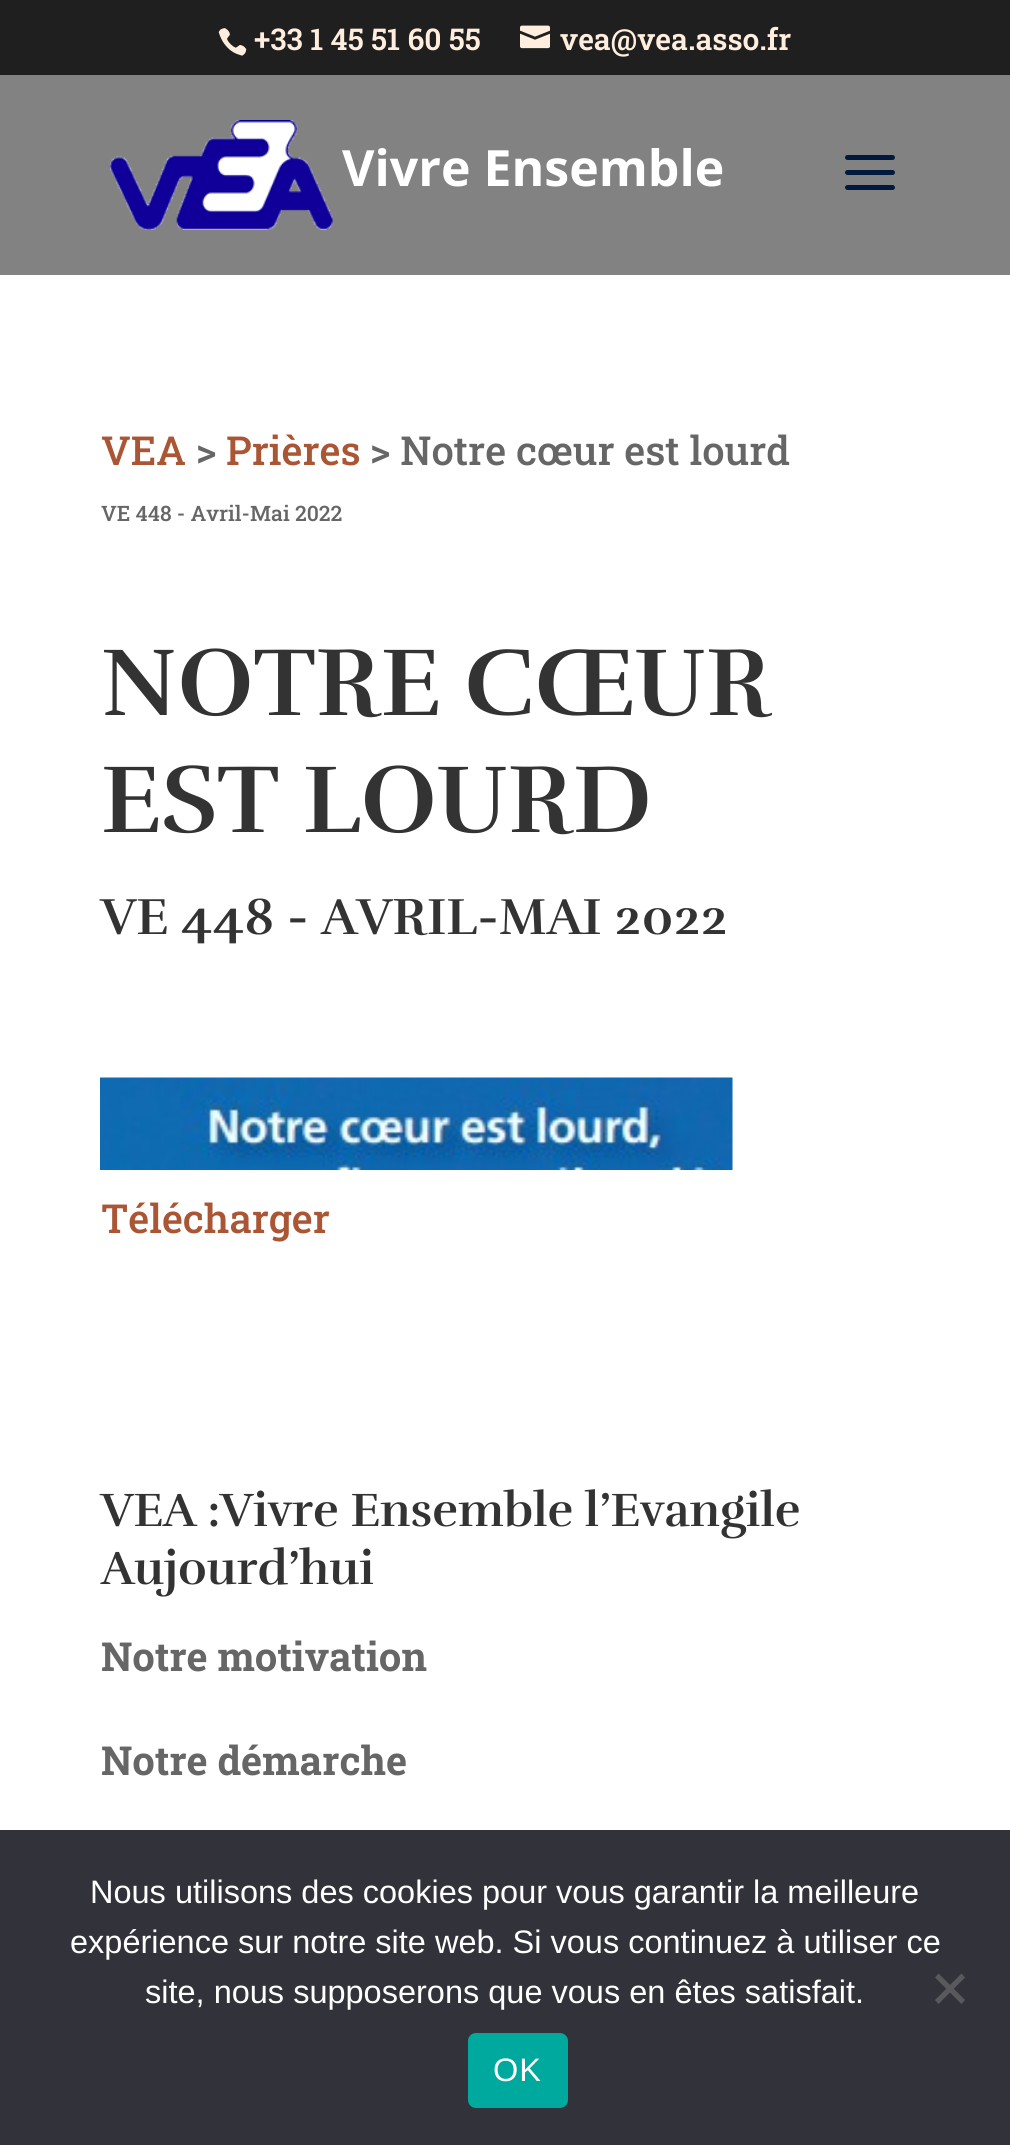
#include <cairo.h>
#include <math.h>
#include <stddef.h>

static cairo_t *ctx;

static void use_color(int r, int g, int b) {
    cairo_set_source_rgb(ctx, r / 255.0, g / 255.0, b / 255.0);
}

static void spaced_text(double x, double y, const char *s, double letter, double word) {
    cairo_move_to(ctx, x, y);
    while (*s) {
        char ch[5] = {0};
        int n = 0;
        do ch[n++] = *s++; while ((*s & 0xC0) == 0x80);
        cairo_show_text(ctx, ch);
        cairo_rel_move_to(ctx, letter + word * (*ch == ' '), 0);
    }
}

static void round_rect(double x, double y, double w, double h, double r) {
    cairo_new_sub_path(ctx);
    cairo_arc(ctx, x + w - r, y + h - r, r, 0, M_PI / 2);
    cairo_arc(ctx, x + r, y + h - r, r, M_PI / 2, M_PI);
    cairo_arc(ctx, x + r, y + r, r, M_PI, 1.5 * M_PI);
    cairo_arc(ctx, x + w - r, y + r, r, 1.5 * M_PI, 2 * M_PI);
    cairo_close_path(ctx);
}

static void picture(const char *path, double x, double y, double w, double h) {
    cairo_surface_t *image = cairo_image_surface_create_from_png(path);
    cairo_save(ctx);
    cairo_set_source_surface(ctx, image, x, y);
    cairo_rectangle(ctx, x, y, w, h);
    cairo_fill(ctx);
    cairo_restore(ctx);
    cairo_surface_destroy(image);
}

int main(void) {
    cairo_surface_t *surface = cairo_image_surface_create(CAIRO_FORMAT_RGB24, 1010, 2145);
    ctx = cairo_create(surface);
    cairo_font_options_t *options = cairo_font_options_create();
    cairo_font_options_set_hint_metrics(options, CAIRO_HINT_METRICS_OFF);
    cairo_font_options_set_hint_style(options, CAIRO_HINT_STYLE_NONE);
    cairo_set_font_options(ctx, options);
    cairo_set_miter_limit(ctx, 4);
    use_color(255, 255, 255);
    cairo_paint(ctx);
    use_color(31, 31, 31);
    cairo_rectangle(ctx, 0, 0, 1010, 75);
    cairo_fill(ctx);
    picture("img1.png", 218, 28, 29, 28);
    cairo_select_font_face(ctx, "Roboto Slab SemiBold", CAIRO_FONT_SLANT_NORMAL, CAIRO_FONT_WEIGHT_NORMAL);
    cairo_set_font_size(ctx, 30);
    use_color(255, 238, 221);
    cairo_move_to(ctx, 254, 50);
    cairo_show_text(ctx, "+33 1 45 51 60 55");
    picture("img2.png", 520, 25, 30, 24);
    cairo_move_to(ctx, 560, 50);
    cairo_show_text(ctx, "vea@vea.asso.fr");
    use_color(130, 130, 130);
    cairo_rectangle(ctx, 0, 75, 1010, 200);
    cairo_fill(ctx);
    picture("img3.png", 110, 120, 223, 110);
    cairo_select_font_face(ctx, "Open Sans", CAIRO_FONT_SLANT_NORMAL, CAIRO_FONT_WEIGHT_BOLD);
    cairo_set_font_size(ctx, 50);
    use_color(255, 255, 255);
    cairo_move_to(ctx, 342, 186);
    cairo_show_text(ctx, "Vivre Ensemble");
    picture("img4.png", 845, 155, 50, 35);
    cairo_select_font_face(ctx, "Roboto Slab Medium", CAIRO_FONT_SLANT_NORMAL, CAIRO_FONT_WEIGHT_NORMAL);
    cairo_set_font_size(ctx, 40);
    use_color(170, 85, 51);
    cairo_move_to(ctx, 101, 465);
    cairo_show_text(ctx, "VEA");
    use_color(102, 102, 102);
    cairo_move_to(ctx, 196, 465);
    cairo_show_text(ctx, ">");
    use_color(170, 85, 51);
    cairo_move_to(ctx, 226, 465);
    cairo_show_text(ctx, "Prières");
    use_color(102, 102, 102);
    cairo_move_to(ctx, 370, 465);
    cairo_show_text(ctx, "> Notre cœur est lourd");
    cairo_set_font_size(ctx, 21.25);
    cairo_move_to(ctx, 101, 521);
    cairo_show_text(ctx, "VE 448 - Avril-Mai 2022");
    cairo_select_font_face(ctx, "Rufina", CAIRO_FONT_SLANT_NORMAL, CAIRO_FONT_WEIGHT_BOLD);
    cairo_set_font_size(ctx, 97.5);
    use_color(51, 51, 51);
    cairo_move_to(ctx, 101, 715);
    cairo_show_text(ctx, "NOTRE CŒUR");
    cairo_move_to(ctx, 101, 832);
    cairo_show_text(ctx, "EST LOURD");
    cairo_set_font_size(ctx, 52);
    cairo_move_to(ctx, 101, 934);
    cairo_show_text(ctx, "VE 448 - AVRIL-MAI 2022");
    picture("img5.png", 100, 1077, 633, 93);
    cairo_select_font_face(ctx, "Roboto Slab Medium", CAIRO_FONT_SLANT_NORMAL, CAIRO_FONT_WEIGHT_NORMAL);
    cairo_set_font_size(ctx, 40);
    use_color(170, 85, 51);
    cairo_move_to(ctx, 101, 1233);
    cairo_show_text(ctx, "Télécharger");
    cairo_select_font_face(ctx, "Rufina", CAIRO_FONT_SLANT_NORMAL, CAIRO_FONT_WEIGHT_BOLD);
    cairo_set_font_size(ctx, 48);
    use_color(51, 51, 51);
    cairo_move_to(ctx, 101, 1526);
    cairo_show_text(ctx, "VEA :Vivre Ensemble l’Evangile");
    cairo_move_to(ctx, 101, 1584);
    cairo_show_text(ctx, "Aujourd’hui");
    cairo_select_font_face(ctx, "Roboto Slab", CAIRO_FONT_SLANT_NORMAL, CAIRO_FONT_WEIGHT_BOLD);
    cairo_set_font_size(ctx, 40);
    use_color(102, 102, 102);
    cairo_move_to(ctx, 101, 1671);
    cairo_show_text(ctx, "Notre motivation");
    cairo_move_to(ctx, 101, 1775);
    cairo_show_text(ctx, "Notre démarche");
    use_color(50, 50, 58);
    cairo_rectangle(ctx, 0, 1830, 1010, 315);
    cairo_fill(ctx);
    cairo_select_font_face(ctx, "Liberation Sans", CAIRO_FONT_SLANT_NORMAL, CAIRO_FONT_WEIGHT_NORMAL);
    cairo_set_font_size(ctx, 32.5);
    use_color(255, 255, 255);
    cairo_move_to(ctx, 90, 1903);
    cairo_show_text(ctx, "Nous utilisons des cookies pour vous garantir la meilleure");
    cairo_move_to(ctx, 70, 1953);
    cairo_show_text(ctx, "expérience sur notre site web. Si vous continuez à utiliser ce");
    cairo_move_to(ctx, 145, 2003);
    cairo_show_text(ctx, "site, nous supposerons que vous en êtes satisfait.");
    use_color(89, 89, 93);
    cairo_new_path(ctx);
    cairo_move_to(ctx, 961.5, 1973.5);
    cairo_line_to(ctx, 965, 1977.5);
    cairo_line_to(ctx, 938.5, 2004);
    cairo_line_to(ctx, 935, 2000);
    cairo_close_path(ctx);
    cairo_fill(ctx);
    cairo_new_path(ctx);
    cairo_move_to(ctx, 935, 1977.5);
    cairo_line_to(ctx, 938.5, 1973.5);
    cairo_line_to(ctx, 965, 2000);
    cairo_line_to(ctx, 961.5, 2004);
    cairo_close_path(ctx);
    cairo_fill(ctx);
    use_color(0, 169, 157);
    round_rect(468, 2033, 100, 75, 8);
    cairo_fill(ctx);
    use_color(255, 255, 255);
    spaced_text(493, 2081, "OK", 1, 0);
    cairo_surface_write_to_png(surface, "result.png");
    cairo_font_options_destroy(options);
    cairo_destroy(ctx);
    cairo_surface_destroy(surface);
    return 0;
}
